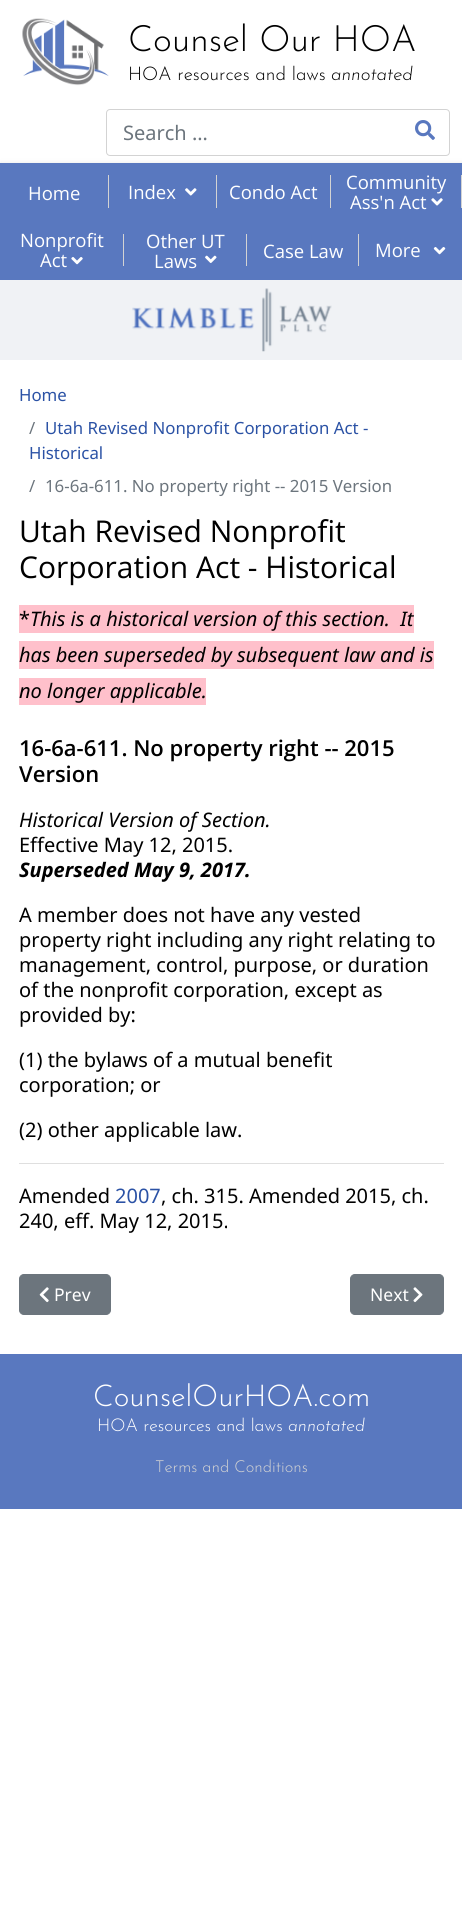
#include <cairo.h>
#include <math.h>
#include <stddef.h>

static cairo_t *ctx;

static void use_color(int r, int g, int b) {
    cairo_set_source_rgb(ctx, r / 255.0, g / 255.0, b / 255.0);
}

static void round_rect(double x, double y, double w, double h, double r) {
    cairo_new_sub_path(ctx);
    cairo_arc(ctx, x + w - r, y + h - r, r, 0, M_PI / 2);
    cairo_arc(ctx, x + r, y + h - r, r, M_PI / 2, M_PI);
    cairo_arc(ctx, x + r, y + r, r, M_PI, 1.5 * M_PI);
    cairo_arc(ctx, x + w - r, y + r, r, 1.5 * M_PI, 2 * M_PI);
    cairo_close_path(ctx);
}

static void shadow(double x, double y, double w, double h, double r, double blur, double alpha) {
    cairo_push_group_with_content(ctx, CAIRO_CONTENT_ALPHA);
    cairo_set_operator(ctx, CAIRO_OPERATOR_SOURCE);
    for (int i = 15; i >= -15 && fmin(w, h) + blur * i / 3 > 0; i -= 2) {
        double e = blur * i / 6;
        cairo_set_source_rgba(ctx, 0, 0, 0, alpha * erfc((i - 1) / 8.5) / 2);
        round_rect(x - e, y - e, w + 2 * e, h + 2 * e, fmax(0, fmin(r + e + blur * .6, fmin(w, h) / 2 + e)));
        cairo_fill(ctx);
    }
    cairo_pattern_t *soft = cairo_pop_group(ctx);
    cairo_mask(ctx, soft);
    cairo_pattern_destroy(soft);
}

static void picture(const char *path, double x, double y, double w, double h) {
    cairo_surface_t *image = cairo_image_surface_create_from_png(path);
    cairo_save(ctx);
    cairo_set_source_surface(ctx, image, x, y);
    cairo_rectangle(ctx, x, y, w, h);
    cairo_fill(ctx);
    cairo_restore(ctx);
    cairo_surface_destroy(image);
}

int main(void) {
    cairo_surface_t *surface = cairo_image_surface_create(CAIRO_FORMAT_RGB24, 462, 1928);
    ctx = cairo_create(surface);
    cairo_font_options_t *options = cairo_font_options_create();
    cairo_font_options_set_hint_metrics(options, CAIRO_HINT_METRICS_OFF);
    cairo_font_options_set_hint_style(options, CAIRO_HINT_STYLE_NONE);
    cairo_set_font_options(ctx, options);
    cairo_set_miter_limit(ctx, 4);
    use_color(255, 255, 255);
    cairo_paint(ctx);
    picture("img1.png", 22, 18, 87, 68);
    cairo_select_font_face(ctx, "Josefin Sans Light", CAIRO_FONT_SLANT_NORMAL, CAIRO_FONT_WEIGHT_NORMAL);
    cairo_set_font_size(ctx, 36.25);
    use_color(0, 0, 0);
    cairo_move_to(ctx, 128, 51);
    cairo_show_text(ctx, "Counsel Our HOA");
    cairo_set_font_size(ctx, 18.75);
    cairo_move_to(ctx, 128, 80);
    cairo_show_text(ctx, "HOA resources and laws");
    cairo_select_font_face(ctx, "Josefin Sans Light", CAIRO_FONT_SLANT_ITALIC, CAIRO_FONT_WEIGHT_NORMAL);
    cairo_move_to(ctx, 331, 80);
    cairo_show_text(ctx, "annotated");
    use_color(0, 0, 0);
    shadow(0, 163, 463, 117, 0, 2.5, 0.1);
    round_rect(106.5, 109.5, 343, 46, 3.5);
    use_color(211, 211, 211);
    cairo_set_line_width(ctx, 1);
    cairo_stroke(ctx);
    cairo_select_font_face(ctx, "Noto Sans", CAIRO_FONT_SLANT_NORMAL, CAIRO_FONT_WEIGHT_NORMAL);
    cairo_set_font_size(ctx, 20);
    use_color(108, 117, 125);
    cairo_move_to(ctx, 123, 140);
    cairo_show_text(ctx, "Search …");
    picture("img2.png", 415, 120, 20, 20);
    use_color(89, 120, 191);
    cairo_rectangle(ctx, 0, 163, 462, 117);
    cairo_fill(ctx);
    cairo_select_font_face(ctx, "Open Sans", CAIRO_FONT_SLANT_NORMAL, CAIRO_FONT_WEIGHT_NORMAL);
    cairo_set_font_size(ctx, 18.5);
    use_color(255, 255, 255);
    cairo_move_to(ctx, 28, 200);
    cairo_show_text(ctx, "Home");
    use_color(211, 211, 211);
    cairo_rectangle(ctx, 108, 175, 1, 33);
    cairo_fill(ctx);
    use_color(255, 255, 255);
    cairo_move_to(ctx, 128, 199);
    cairo_show_text(ctx, "Index");
    picture("img3.png", 185, 188, 12, 8);
    use_color(211, 211, 211);
    cairo_rectangle(ctx, 216, 175, 1, 33);
    cairo_fill(ctx);
    use_color(255, 255, 255);
    cairo_move_to(ctx, 229, 199);
    cairo_show_text(ctx, "Condo Act");
    use_color(211, 211, 211);
    cairo_rectangle(ctx, 330, 175, 1, 33);
    cairo_fill(ctx);
    use_color(255, 255, 255);
    cairo_move_to(ctx, 346, 189);
    cairo_show_text(ctx, "Community");
    cairo_move_to(ctx, 350, 209);
    cairo_show_text(ctx, "Ass'n Act");
    picture("img4.png", 431, 198, 12, 8);
    use_color(211, 211, 211);
    cairo_rectangle(ctx, 461, 175, 1, 33);
    cairo_fill(ctx);
    use_color(255, 255, 255);
    cairo_move_to(ctx, 20, 247);
    cairo_show_text(ctx, "Nonprofit");
    cairo_move_to(ctx, 40, 267);
    cairo_show_text(ctx, "Act");
    picture("img5.png", 71, 257, 12, 8);
    use_color(211, 211, 211);
    cairo_rectangle(ctx, 123, 234, 1, 32);
    cairo_fill(ctx);
    use_color(255, 255, 255);
    cairo_move_to(ctx, 146, 248);
    cairo_show_text(ctx, "Other UT");
    cairo_move_to(ctx, 154, 268);
    cairo_show_text(ctx, "Laws");
    picture("img6.png", 205, 255, 12, 8);
    use_color(211, 211, 211);
    cairo_rectangle(ctx, 246, 234, 1, 32);
    cairo_fill(ctx);
    use_color(255, 255, 255);
    cairo_move_to(ctx, 263, 258);
    cairo_show_text(ctx, "Case Law");
    use_color(211, 211, 211);
    cairo_rectangle(ctx, 358, 234, 1, 32);
    cairo_fill(ctx);
    use_color(255, 255, 255);
    cairo_move_to(ctx, 375, 257);
    cairo_show_text(ctx, "More");
    picture("img7.png", 433, 247, 13, 8);
    use_color(240, 242, 245);
    cairo_rectangle(ctx, 0, 280, 462, 80);
    cairo_fill(ctx);
    picture("img8.png", 132, 288, 200, 64);
    cairo_select_font_face(ctx, "Noto Sans", CAIRO_FONT_SLANT_NORMAL, CAIRO_FONT_WEIGHT_NORMAL);
    cairo_set_font_size(ctx, 16.8);
    use_color(43, 82, 165);
    cairo_move_to(ctx, 19, 401);
    cairo_show_text(ctx, "Home");
    use_color(108, 117, 125);
    cairo_move_to(ctx, 29, 434);
    cairo_show_text(ctx, "/");
    use_color(43, 82, 165);
    cairo_move_to(ctx, 45, 434);
    cairo_show_text(ctx, "Utah Revised Nonprofit Corporation Act -");
    cairo_move_to(ctx, 29, 459);
    cairo_show_text(ctx, "Historical");
    use_color(108, 117, 125);
    cairo_move_to(ctx, 29, 492);
    cairo_show_text(ctx, "/");
    cairo_move_to(ctx, 45, 492);
    cairo_show_text(ctx, "16-6a-611. No property right -- 2015 Version");
    cairo_select_font_face(ctx, "Open Sans", CAIRO_FONT_SLANT_NORMAL, CAIRO_FONT_WEIGHT_NORMAL);
    cairo_set_font_size(ctx, 30);
    use_color(0, 0, 0);
    cairo_move_to(ctx, 19, 542);
    cairo_show_text(ctx, "Utah Revised Nonprofit");
    cairo_move_to(ctx, 19, 578);
    cairo_show_text(ctx, "Corporation Act - Historical");
    use_color(255, 192, 203);
    cairo_rectangle(ctx, 19, 605, 395, 28);
    cairo_fill(ctx);
    cairo_select_font_face(ctx, "Noto Sans", CAIRO_FONT_SLANT_NORMAL, CAIRO_FONT_WEIGHT_NORMAL);
    cairo_set_font_size(ctx, 20);
    use_color(0, 0, 0);
    cairo_move_to(ctx, 19, 626);
    cairo_show_text(ctx, "*");
    cairo_select_font_face(ctx, "Noto Sans", CAIRO_FONT_SLANT_ITALIC, CAIRO_FONT_WEIGHT_NORMAL);
    cairo_move_to(ctx, 30, 626);
    cairo_show_text(ctx, "This is a historical version of this section.  It");
    use_color(255, 192, 203);
    cairo_rectangle(ctx, 19, 641, 415, 28);
    cairo_fill(ctx);
    use_color(0, 0, 0);
    cairo_move_to(ctx, 19, 662);
    cairo_show_text(ctx, "has been superseded by subsequent law and is");
    use_color(255, 192, 203);
    cairo_rectangle(ctx, 19, 678, 187, 27);
    cairo_fill(ctx);
    use_color(0, 0, 0);
    cairo_move_to(ctx, 19, 698);
    cairo_show_text(ctx, "no longer applicable.");
    cairo_select_font_face(ctx, "Open Sans SemiBold", CAIRO_FONT_SLANT_NORMAL, CAIRO_FONT_WEIGHT_NORMAL);
    cairo_set_font_size(ctx, 22);
    cairo_move_to(ctx, 19, 756);
    cairo_show_text(ctx, "16-6a-611. No property right -- 2015");
    cairo_move_to(ctx, 19, 782);
    cairo_show_text(ctx, "Version");
    cairo_select_font_face(ctx, "Noto Sans", CAIRO_FONT_SLANT_ITALIC, CAIRO_FONT_WEIGHT_NORMAL);
    cairo_set_font_size(ctx, 20);
    cairo_move_to(ctx, 19, 827);
    cairo_show_text(ctx, "Historical Version of Section.");
    cairo_select_font_face(ctx, "Noto Sans", CAIRO_FONT_SLANT_NORMAL, CAIRO_FONT_WEIGHT_NORMAL);
    cairo_move_to(ctx, 19, 852);
    cairo_show_text(ctx, "Effective May 12, 2015.");
    cairo_select_font_face(ctx, "Noto Sans", CAIRO_FONT_SLANT_ITALIC, CAIRO_FONT_WEIGHT_BOLD);
    cairo_move_to(ctx, 19, 877);
    cairo_show_text(ctx, "Superseded May 9, 2017.");
    cairo_select_font_face(ctx, "Noto Sans", CAIRO_FONT_SLANT_NORMAL, CAIRO_FONT_WEIGHT_NORMAL);
    cairo_move_to(ctx, 19, 922);
    cairo_show_text(ctx, "A member does not have any vested");
    cairo_move_to(ctx, 19, 947);
    cairo_show_text(ctx, "property right including any right relating to");
    cairo_move_to(ctx, 19, 972);
    cairo_show_text(ctx, "management, control, purpose, or duration");
    cairo_move_to(ctx, 19, 997);
    cairo_show_text(ctx, "of the nonprofit corporation, except as");
    cairo_move_to(ctx, 19, 1022);
    cairo_show_text(ctx, "provided by:");
    cairo_move_to(ctx, 19, 1067);
    cairo_show_text(ctx, "(1) the bylaws of a mutual benefit");
    cairo_move_to(ctx, 19, 1092);
    cairo_show_text(ctx, "corporation; or");
    cairo_move_to(ctx, 19, 1137);
    cairo_show_text(ctx, "(2) other applicable law.");
    use_color(223, 223, 223);
    cairo_rectangle(ctx, 19, 1163, 425, 1);
    cairo_fill(ctx);
    use_color(0, 0, 0);
    cairo_move_to(ctx, 19, 1203);
    cairo_show_text(ctx, "Amended");
    use_color(43, 82, 165);
    cairo_move_to(ctx, 115, 1203);
    cairo_show_text(ctx, "2007");
    use_color(0, 0, 0);
    cairo_move_to(ctx, 161, 1203);
    cairo_show_text(ctx, ", ch. 315. Amended 2015, ch.");
    cairo_move_to(ctx, 19, 1228);
    cairo_show_text(ctx, "240, eff. May 12, 2015.");
    use_color(108, 117, 125);
    round_rect(19.5, 1274.5, 91, 40, 4.5);
    cairo_fill_preserve(ctx);
    cairo_stroke(ctx);
    picture("img9.png", 39, 1287, 10, 16);
    cairo_set_font_size(ctx, 17.5);
    use_color(255, 255, 255);
    cairo_move_to(ctx, 54, 1301);
    cairo_show_text(ctx, "Prev");
    use_color(108, 117, 125);
    round_rect(350.5, 1274.5, 93, 40, 4.5);
    cairo_fill_preserve(ctx);
    cairo_stroke(ctx);
    use_color(255, 255, 255);
    cairo_move_to(ctx, 370, 1301);
    cairo_show_text(ctx, "Next");
    picture("img10.png", 413, 1287, 10, 16);
    use_color(89, 120, 191);
    cairo_rectangle(ctx, 0, 1354, 462, 155);
    cairo_fill(ctx);
    cairo_select_font_face(ctx, "Josefin Sans Light", CAIRO_FONT_SLANT_NORMAL, CAIRO_FONT_WEIGHT_NORMAL);
    cairo_set_font_size(ctx, 30);
    use_color(255, 255, 255);
    cairo_move_to(ctx, 93, 1406);
    cairo_show_text(ctx, "CounselOurHOA.com");
    cairo_set_font_size(ctx, 17.6);
    cairo_move_to(ctx, 97, 1431);
    cairo_show_text(ctx, "HOA resources and laws");
    cairo_select_font_face(ctx, "Josefin Sans Light", CAIRO_FONT_SLANT_ITALIC, CAIRO_FONT_WEIGHT_NORMAL);
    cairo_move_to(ctx, 288, 1431);
    cairo_show_text(ctx, "annotated");
    cairo_select_font_face(ctx, "Josefin Sans Light", CAIRO_FONT_SLANT_NORMAL, CAIRO_FONT_WEIGHT_NORMAL);
    cairo_set_font_size(ctx, 16.5);
    use_color(211, 211, 211);
    cairo_move_to(ctx, 155, 1472);
    cairo_show_text(ctx, "Terms and Conditions");
    cairo_surface_write_to_png(surface, "result.png");
    cairo_font_options_destroy(options);
    cairo_destroy(ctx);
    cairo_surface_destroy(surface);
    return 0;
}
